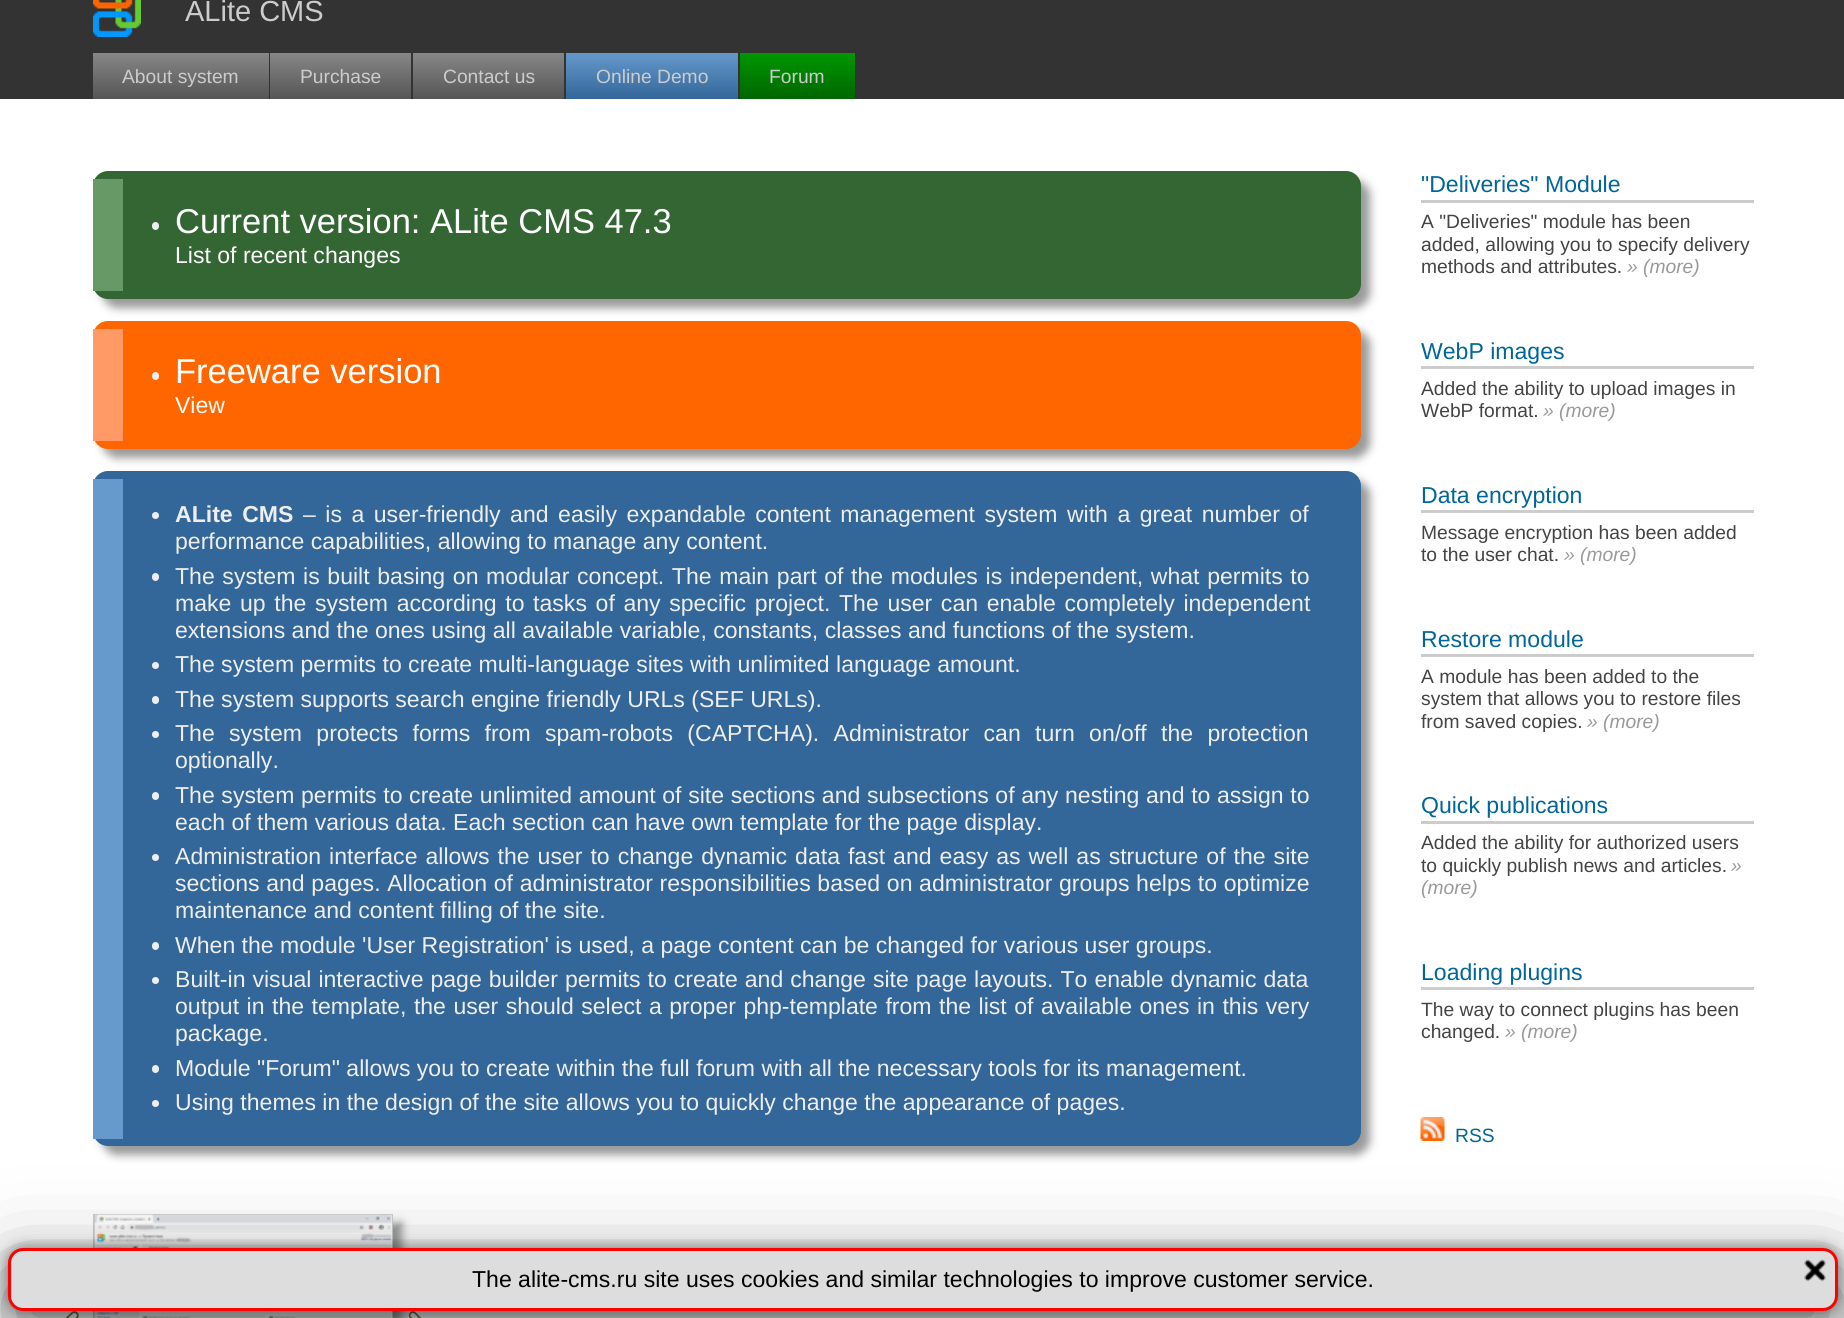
#include <cairo.h>
#include <math.h>
#include <stddef.h>

static cairo_t *ctx;

static void use_color(int r, int g, int b) {
    cairo_set_source_rgb(ctx, r / 255.0, g / 255.0, b / 255.0);
}

static void spaced_text(double x, double y, const char *s, double letter, double word) {
    cairo_move_to(ctx, x, y);
    while (*s) {
        char ch[5] = {0};
        int n = 0;
        do ch[n++] = *s++; while ((*s & 0xC0) == 0x80);
        cairo_show_text(ctx, ch);
        cairo_rel_move_to(ctx, letter + word * (*ch == ' '), 0);
    }
}

static void round_rect(double x, double y, double w, double h, double r) {
    cairo_new_sub_path(ctx);
    cairo_arc(ctx, x + w - r, y + h - r, r, 0, M_PI / 2);
    cairo_arc(ctx, x + r, y + h - r, r, M_PI / 2, M_PI);
    cairo_arc(ctx, x + r, y + r, r, M_PI, 1.5 * M_PI);
    cairo_arc(ctx, x + w - r, y + r, r, 1.5 * M_PI, 2 * M_PI);
    cairo_close_path(ctx);
}

static void shadow(double x, double y, double w, double h, double r, double blur, double alpha) {
    cairo_push_group_with_content(ctx, CAIRO_CONTENT_ALPHA);
    cairo_set_operator(ctx, CAIRO_OPERATOR_SOURCE);
    for (int i = 15; i >= -15 && fmin(w, h) + blur * i / 3 > 0; i -= 2) {
        double e = blur * i / 6;
        cairo_set_source_rgba(ctx, 0, 0, 0, alpha * erfc((i - 1) / 8.5) / 2);
        round_rect(x - e, y - e, w + 2 * e, h + 2 * e, fmax(0, fmin(r + e + blur * .6, fmin(w, h) / 2 + e)));
        cairo_fill(ctx);
    }
    cairo_pattern_t *soft = cairo_pop_group(ctx);
    cairo_mask(ctx, soft);
    cairo_pattern_destroy(soft);
}

static void picture(const char *path, double x, double y, double w, double h) {
    cairo_surface_t *image = cairo_image_surface_create_from_png(path);
    cairo_save(ctx);
    cairo_set_source_surface(ctx, image, x, y);
    cairo_rectangle(ctx, x, y, w, h);
    cairo_fill(ctx);
    cairo_restore(ctx);
    cairo_surface_destroy(image);
}

int main(void) {
    cairo_surface_t *surface = cairo_image_surface_create(CAIRO_FORMAT_RGB24, 1844, 1318);
    ctx = cairo_create(surface);
    cairo_font_options_t *options = cairo_font_options_create();
    cairo_font_options_set_hint_metrics(options, CAIRO_HINT_METRICS_OFF);
    cairo_font_options_set_hint_style(options, CAIRO_HINT_STYLE_NONE);
    cairo_set_font_options(ctx, options);
    cairo_set_miter_limit(ctx, 4);
    cairo_pattern_t *gradient;
    use_color(255, 255, 255);
    cairo_paint(ctx);
    use_color(51, 51, 51);
    cairo_rectangle(ctx, 0, 0, 1844, 99);
    cairo_fill(ctx);
    picture("img1.png", 93, 0, 48, 37);
    cairo_select_font_face(ctx, "Liberation Sans", CAIRO_FONT_SLANT_NORMAL, CAIRO_FONT_WEIGHT_NORMAL);
    cairo_set_font_size(ctx, 29);
    use_color(204, 204, 204);
    cairo_move_to(ctx, 185, 21);
    cairo_show_text(ctx, "ALite CMS");
    gradient = cairo_pattern_create_linear(181, 52, 181, 99);
    cairo_pattern_add_color_stop_rgba(gradient, 0, 0.533, 0.533, 0.533, 1);
    cairo_pattern_add_color_stop_rgba(gradient, 1, 0.333, 0.333, 0.333, 1);
    cairo_set_source(ctx, gradient);
    cairo_pattern_destroy(gradient);
    cairo_rectangle(ctx, 93, 53, 176, 46);
    cairo_fill(ctx);
    cairo_set_font_size(ctx, 19.25);
    use_color(204, 204, 204);
    cairo_move_to(ctx, 122, 83);
    cairo_show_text(ctx, "About system");
    gradient = cairo_pattern_create_linear(341, 52, 341, 99);
    cairo_pattern_add_color_stop_rgba(gradient, 0, 0.533, 0.533, 0.533, 1);
    cairo_pattern_add_color_stop_rgba(gradient, 1, 0.333, 0.333, 0.333, 1);
    cairo_set_source(ctx, gradient);
    cairo_pattern_destroy(gradient);
    cairo_rectangle(ctx, 270, 53, 141, 46);
    cairo_fill(ctx);
    use_color(204, 204, 204);
    cairo_move_to(ctx, 300, 83);
    cairo_show_text(ctx, "Purchase");
    gradient = cairo_pattern_create_linear(488, 52, 488, 99);
    cairo_pattern_add_color_stop_rgba(gradient, 0, 0.533, 0.533, 0.533, 1);
    cairo_pattern_add_color_stop_rgba(gradient, 1, 0.333, 0.333, 0.333, 1);
    cairo_set_source(ctx, gradient);
    cairo_pattern_destroy(gradient);
    cairo_rectangle(ctx, 413, 53, 151, 46);
    cairo_fill(ctx);
    use_color(204, 204, 204);
    cairo_move_to(ctx, 443, 83);
    cairo_show_text(ctx, "Contact us");
    gradient = cairo_pattern_create_linear(652, 52, 652, 99);
    cairo_pattern_add_color_stop_rgba(gradient, 0, 0.4, 0.6, 0.8, 1);
    cairo_pattern_add_color_stop_rgba(gradient, 1, 0.2, 0.4, 0.6, 1);
    cairo_set_source(ctx, gradient);
    cairo_pattern_destroy(gradient);
    cairo_rectangle(ctx, 566, 53, 172, 46);
    cairo_fill(ctx);
    use_color(204, 204, 204);
    cairo_move_to(ctx, 596, 83);
    cairo_show_text(ctx, "Online Demo");
    gradient = cairo_pattern_create_linear(797, 52, 797, 99);
    cairo_pattern_add_color_stop_rgba(gradient, 0, 0, 0.6, 0, 1);
    cairo_pattern_add_color_stop_rgba(gradient, 1, 0, 0.4, 0, 1);
    cairo_set_source(ctx, gradient);
    cairo_pattern_destroy(gradient);
    cairo_rectangle(ctx, 740, 53, 115, 46);
    cairo_fill(ctx);
    use_color(204, 204, 204);
    cairo_move_to(ctx, 769, 83);
    cairo_show_text(ctx, "Forum");
    use_color(0, 0, 0);
    shadow(102, 180, 1268, 128, 15, 4.5, 0.4);
    use_color(51, 102, 51);
    round_rect(93, 171, 1268, 128, 15);
    cairo_fill(ctx);
    use_color(102, 153, 102);
    cairo_rectangle(ctx, 93, 179, 30, 112);
    cairo_fill(ctx);
    use_color(238, 238, 238);
    round_rect(152, 222, 7, 8, 3.5);
    cairo_fill(ctx);
    cairo_set_font_size(ctx, 34.5);
    use_color(255, 255, 255);
    cairo_move_to(ctx, 175, 233);
    cairo_show_text(ctx, "Current version: ALite CMS 47.3");
    cairo_set_font_size(ctx, 23.05);
    cairo_move_to(ctx, 175, 263);
    cairo_show_text(ctx, "List of recent changes");
    use_color(0, 0, 0);
    shadow(102, 330, 1268, 128, 15, 4.5, 0.4);
    use_color(255, 102, 0);
    round_rect(93, 321, 1268, 128, 15);
    cairo_fill(ctx);
    use_color(255, 153, 102);
    cairo_rectangle(ctx, 93, 329, 30, 112);
    cairo_fill(ctx);
    use_color(238, 238, 238);
    round_rect(152, 372, 7, 8, 3.5);
    cairo_fill(ctx);
    cairo_set_font_size(ctx, 34.5);
    use_color(255, 255, 255);
    cairo_move_to(ctx, 175, 383);
    cairo_show_text(ctx, "Freeware version");
    cairo_set_font_size(ctx, 23.05);
    cairo_move_to(ctx, 175, 413);
    cairo_show_text(ctx, "View");
    use_color(0, 0, 0);
    shadow(102, 480, 1268, 675, 15, 4.5, 0.4);
    use_color(51, 102, 153);
    round_rect(93, 471, 1268, 675, 15);
    cairo_fill(ctx);
    use_color(102, 153, 204);
    cairo_rectangle(ctx, 93, 479, 30, 660);
    cairo_fill(ctx);
    use_color(238, 238, 238);
    cairo_arc(ctx, 155.5, 515.5, 3.5, 0, 2 * M_PI);
    cairo_fill(ctx);
    cairo_select_font_face(ctx, "Liberation Sans", CAIRO_FONT_SLANT_NORMAL, CAIRO_FONT_WEIGHT_BOLD);
    spaced_text(175, 522, "ALite CMS", 0, 3.1);
    cairo_select_font_face(ctx, "Liberation Sans", CAIRO_FONT_SLANT_NORMAL, CAIRO_FONT_WEIGHT_NORMAL);
    spaced_text(303, 522, "– is a user-friendly and easily expandable content management system with a great number of", 0, 3.1);
    cairo_move_to(ctx, 175, 549);
    cairo_show_text(ctx, "performance capabilities, allowing to manage any content.");
    round_rect(152, 573, 7, 8, 3.5);
    cairo_fill(ctx);
    spaced_text(175, 584, "The system is built basing on modular concept. The main part of the modules is independent, what permits to", 0, 1.25);
    spaced_text(175, 611, "make up the system according to tasks of any specific project. The user can enable completely independent", 0, 2.25);
    cairo_move_to(ctx, 175, 638);
    cairo_show_text(ctx, "extensions and the ones using all available variable, constants, classes and functions of the system.");
    cairo_new_path(ctx);
    cairo_arc(ctx, 155.5, 665.5, 3.5, 0, 2 * M_PI);
    cairo_fill(ctx);
    cairo_move_to(ctx, 175, 672);
    cairo_show_text(ctx, "The system permits to create multi-language sites with unlimited language amount.");
    round_rect(152, 696, 7, 8, 3.5);
    cairo_fill(ctx);
    cairo_move_to(ctx, 175, 707);
    cairo_show_text(ctx, "The system supports search engine friendly URLs (SEF URLs).");
    cairo_new_path(ctx);
    cairo_arc(ctx, 155.5, 734.5, 3.5, 0, 2 * M_PI);
    cairo_fill(ctx);
    spaced_text(175, 741, "The system protects forms from spam-robots (CAPTCHA). Administrator can turn on/off the protection", 0, 7.9);
    cairo_move_to(ctx, 175, 768);
    cairo_show_text(ctx, "optionally.");
    round_rect(152, 792, 7, 8, 3.5);
    cairo_fill(ctx);
    spaced_text(175, 803, "The system permits to create unlimited amount of site sections and subsections of any nesting and to assign to", 0, 0.25);
    cairo_move_to(ctx, 175, 830);
    cairo_show_text(ctx, "each of them various data. Each section can have own template for the page display.");
    cairo_new_path(ctx);
    cairo_arc(ctx, 155.5, 857.5, 3.5, 0, 2 * M_PI);
    cairo_fill(ctx);
    spaced_text(175, 864, "Administration interface allows the user to change dynamic data fast and easy as well as structure of the site", 0, 1.6);
    spaced_text(175, 891, "sections and pages. Allocation of administrator responsibilities based on administrator groups helps to optimize", 0, 0.25);
    cairo_move_to(ctx, 175, 918);
    cairo_show_text(ctx, "maintenance and content filling of the site.");
    round_rect(152, 942, 7, 8, 3.5);
    cairo_fill(ctx);
    cairo_move_to(ctx, 175, 953);
    cairo_show_text(ctx, "When the module 'User Registration' is used, a page content can be changed for various user groups.");
    cairo_new_path(ctx);
    cairo_arc(ctx, 155.5, 980.5, 3.5, 0, 2 * M_PI);
    cairo_fill(ctx);
    spaced_text(175, 987, "Built-in visual interactive page builder permits to create and change site page layouts. To enable dynamic data", 0, 0.6);
    spaced_text(175, 1014, "output in the template, the user should select a proper php-template from the list of available ones in this very", 0, 1.1);
    cairo_move_to(ctx, 175, 1041);
    cairo_show_text(ctx, "package.");
    round_rect(152, 1065, 7, 8, 3.5);
    cairo_fill(ctx);
    cairo_move_to(ctx, 175, 1076);
    cairo_show_text(ctx, "Module \"Forum\" allows you to create within the full forum with all the necessary tools for its management.");
    cairo_new_path(ctx);
    cairo_arc(ctx, 155.5, 1103.5, 3.5, 0, 2 * M_PI);
    cairo_fill(ctx);
    cairo_move_to(ctx, 175, 1110);
    cairo_show_text(ctx, "Using themes in the design of the site allows you to quickly change the appearance of pages.");
    picture("img2.png", 65, 1311, 14, 7);
    picture("img4.png", 408, 1311, 14, 7);
    use_color(0, 0, 0);
    shadow(102, 1223, 300, 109, 0, 4.5, 0.4);
    cairo_rectangle(ctx, 94, 1215, 298, 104);
    use_color(204, 204, 204);
    cairo_stroke(ctx);
    use_color(255, 255, 255);
    cairo_rectangle(ctx, 391, 1215, 1, 103);
    cairo_fill(ctx);
    picture("img3.png", 94, 1214, 298, 104);
    use_color(204, 204, 204);
    cairo_rectangle(ctx, 1421, 200, 333, 3);
    cairo_fill(ctx);
    use_color(0, 102, 153);
    cairo_move_to(ctx, 1421, 192);
    cairo_show_text(ctx, "\"Deliveries\" Module");
    cairo_set_font_size(ctx, 19.25);
    use_color(68, 68, 68);
    cairo_move_to(ctx, 1421, 228);
    cairo_show_text(ctx, "A \"Deliveries\" module has been");
    cairo_move_to(ctx, 1421, 251);
    cairo_show_text(ctx, "added, allowing you to specify delivery");
    cairo_move_to(ctx, 1421, 273);
    cairo_show_text(ctx, "methods and attributes.");
    cairo_select_font_face(ctx, "Liberation Sans", CAIRO_FONT_SLANT_ITALIC, CAIRO_FONT_WEIGHT_NORMAL);
    use_color(153, 153, 153);
    cairo_move_to(ctx, 1627, 273);
    cairo_show_text(ctx, "» (more)");
    use_color(204, 204, 204);
    cairo_rectangle(ctx, 1421, 366, 333, 3);
    cairo_fill(ctx);
    cairo_select_font_face(ctx, "Liberation Sans", CAIRO_FONT_SLANT_NORMAL, CAIRO_FONT_WEIGHT_NORMAL);
    cairo_set_font_size(ctx, 23.05);
    use_color(0, 102, 153);
    cairo_move_to(ctx, 1421, 359);
    cairo_show_text(ctx, "WebP images");
    cairo_set_font_size(ctx, 19.25);
    use_color(68, 68, 68);
    cairo_move_to(ctx, 1421, 395);
    cairo_show_text(ctx, "Added the ability to upload images in");
    cairo_move_to(ctx, 1421, 417);
    cairo_show_text(ctx, "WebP format.");
    cairo_select_font_face(ctx, "Liberation Sans", CAIRO_FONT_SLANT_ITALIC, CAIRO_FONT_WEIGHT_NORMAL);
    use_color(153, 153, 153);
    cairo_move_to(ctx, 1543, 417);
    cairo_show_text(ctx, "» (more)");
    use_color(204, 204, 204);
    cairo_rectangle(ctx, 1421, 510, 333, 3);
    cairo_fill(ctx);
    cairo_select_font_face(ctx, "Liberation Sans", CAIRO_FONT_SLANT_NORMAL, CAIRO_FONT_WEIGHT_NORMAL);
    cairo_set_font_size(ctx, 23.05);
    use_color(0, 102, 153);
    cairo_move_to(ctx, 1421, 503);
    cairo_show_text(ctx, "Data encryption");
    cairo_set_font_size(ctx, 19.25);
    use_color(68, 68, 68);
    cairo_move_to(ctx, 1421, 539);
    cairo_show_text(ctx, "Message encryption has been added");
    cairo_move_to(ctx, 1421, 561);
    cairo_show_text(ctx, "to the user chat.");
    cairo_select_font_face(ctx, "Liberation Sans", CAIRO_FONT_SLANT_ITALIC, CAIRO_FONT_WEIGHT_NORMAL);
    use_color(153, 153, 153);
    cairo_move_to(ctx, 1564, 561);
    cairo_show_text(ctx, "» (more)");
    use_color(204, 204, 204);
    cairo_rectangle(ctx, 1421, 654, 333, 3);
    cairo_fill(ctx);
    cairo_select_font_face(ctx, "Liberation Sans", CAIRO_FONT_SLANT_NORMAL, CAIRO_FONT_WEIGHT_NORMAL);
    cairo_set_font_size(ctx, 23.05);
    use_color(0, 102, 153);
    cairo_move_to(ctx, 1421, 647);
    cairo_show_text(ctx, "Restore module");
    cairo_set_font_size(ctx, 19.25);
    use_color(68, 68, 68);
    cairo_move_to(ctx, 1421, 683);
    cairo_show_text(ctx, "A module has been added to the");
    cairo_move_to(ctx, 1421, 705);
    cairo_show_text(ctx, "system that allows you to restore files");
    cairo_move_to(ctx, 1421, 728);
    cairo_show_text(ctx, "from saved copies.");
    cairo_select_font_face(ctx, "Liberation Sans", CAIRO_FONT_SLANT_ITALIC, CAIRO_FONT_WEIGHT_NORMAL);
    use_color(153, 153, 153);
    cairo_move_to(ctx, 1587, 728);
    cairo_show_text(ctx, "» (more)");
    use_color(204, 204, 204);
    cairo_rectangle(ctx, 1421, 821, 333, 3);
    cairo_fill(ctx);
    cairo_select_font_face(ctx, "Liberation Sans", CAIRO_FONT_SLANT_NORMAL, CAIRO_FONT_WEIGHT_NORMAL);
    cairo_set_font_size(ctx, 23.05);
    use_color(0, 102, 153);
    cairo_move_to(ctx, 1421, 813);
    cairo_show_text(ctx, "Quick publications");
    cairo_set_font_size(ctx, 19.25);
    use_color(68, 68, 68);
    cairo_move_to(ctx, 1421, 849);
    cairo_show_text(ctx, "Added the ability for authorized users");
    cairo_move_to(ctx, 1421, 872);
    cairo_show_text(ctx, "to quickly publish news and articles.");
    cairo_select_font_face(ctx, "Liberation Sans", CAIRO_FONT_SLANT_ITALIC, CAIRO_FONT_WEIGHT_NORMAL);
    use_color(153, 153, 153);
    cairo_move_to(ctx, 1731, 872);
    cairo_show_text(ctx, "»");
    cairo_move_to(ctx, 1421, 894);
    cairo_show_text(ctx, "(more)");
    use_color(204, 204, 204);
    cairo_rectangle(ctx, 1421, 987, 333, 3);
    cairo_fill(ctx);
    cairo_select_font_face(ctx, "Liberation Sans", CAIRO_FONT_SLANT_NORMAL, CAIRO_FONT_WEIGHT_NORMAL);
    cairo_set_font_size(ctx, 23.05);
    use_color(0, 102, 153);
    cairo_move_to(ctx, 1421, 980);
    cairo_show_text(ctx, "Loading plugins");
    cairo_set_font_size(ctx, 19.25);
    use_color(68, 68, 68);
    cairo_move_to(ctx, 1421, 1016);
    cairo_show_text(ctx, "The way to connect plugins has been");
    cairo_move_to(ctx, 1421, 1038);
    cairo_show_text(ctx, "changed.");
    cairo_select_font_face(ctx, "Liberation Sans", CAIRO_FONT_SLANT_ITALIC, CAIRO_FONT_WEIGHT_NORMAL);
    use_color(153, 153, 153);
    cairo_move_to(ctx, 1505, 1038);
    cairo_show_text(ctx, "» (more)");
    picture("img5.png", 1420, 1117, 25, 24);
    cairo_select_font_face(ctx, "Liberation Sans", CAIRO_FONT_SLANT_NORMAL, CAIRO_FONT_WEIGHT_NORMAL);
    use_color(0, 102, 153);
    cairo_move_to(ctx, 1455, 1142);
    cairo_show_text(ctx, "RSS");
    use_color(0, 0, 0);
    shadow(8, 1277, 1830, 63, 15, 45, 0.5);
    shadow(8, 1248, 1830, 63, 15, 7.5, 0.5);
    use_color(221, 221, 221);
    round_rect(9.5, 1249.5, 1827, 60, 13.5);
    cairo_fill_preserve(ctx);
    use_color(255, 0, 0);
    cairo_set_line_width(ctx, 3);
    cairo_stroke(ctx);
    cairo_set_font_size(ctx, 23.05);
    use_color(0, 0, 0);
    cairo_move_to(ctx, 472, 1287);
    cairo_show_text(ctx, "The alite-cms.ru site uses cookies and similar technologies to improve customer service.");
    picture("img6.png", 1804, 1259, 22, 23);
    cairo_surface_write_to_png(surface, "result.png");
    cairo_font_options_destroy(options);
    cairo_destroy(ctx);
    cairo_surface_destroy(surface);
    return 0;
}
